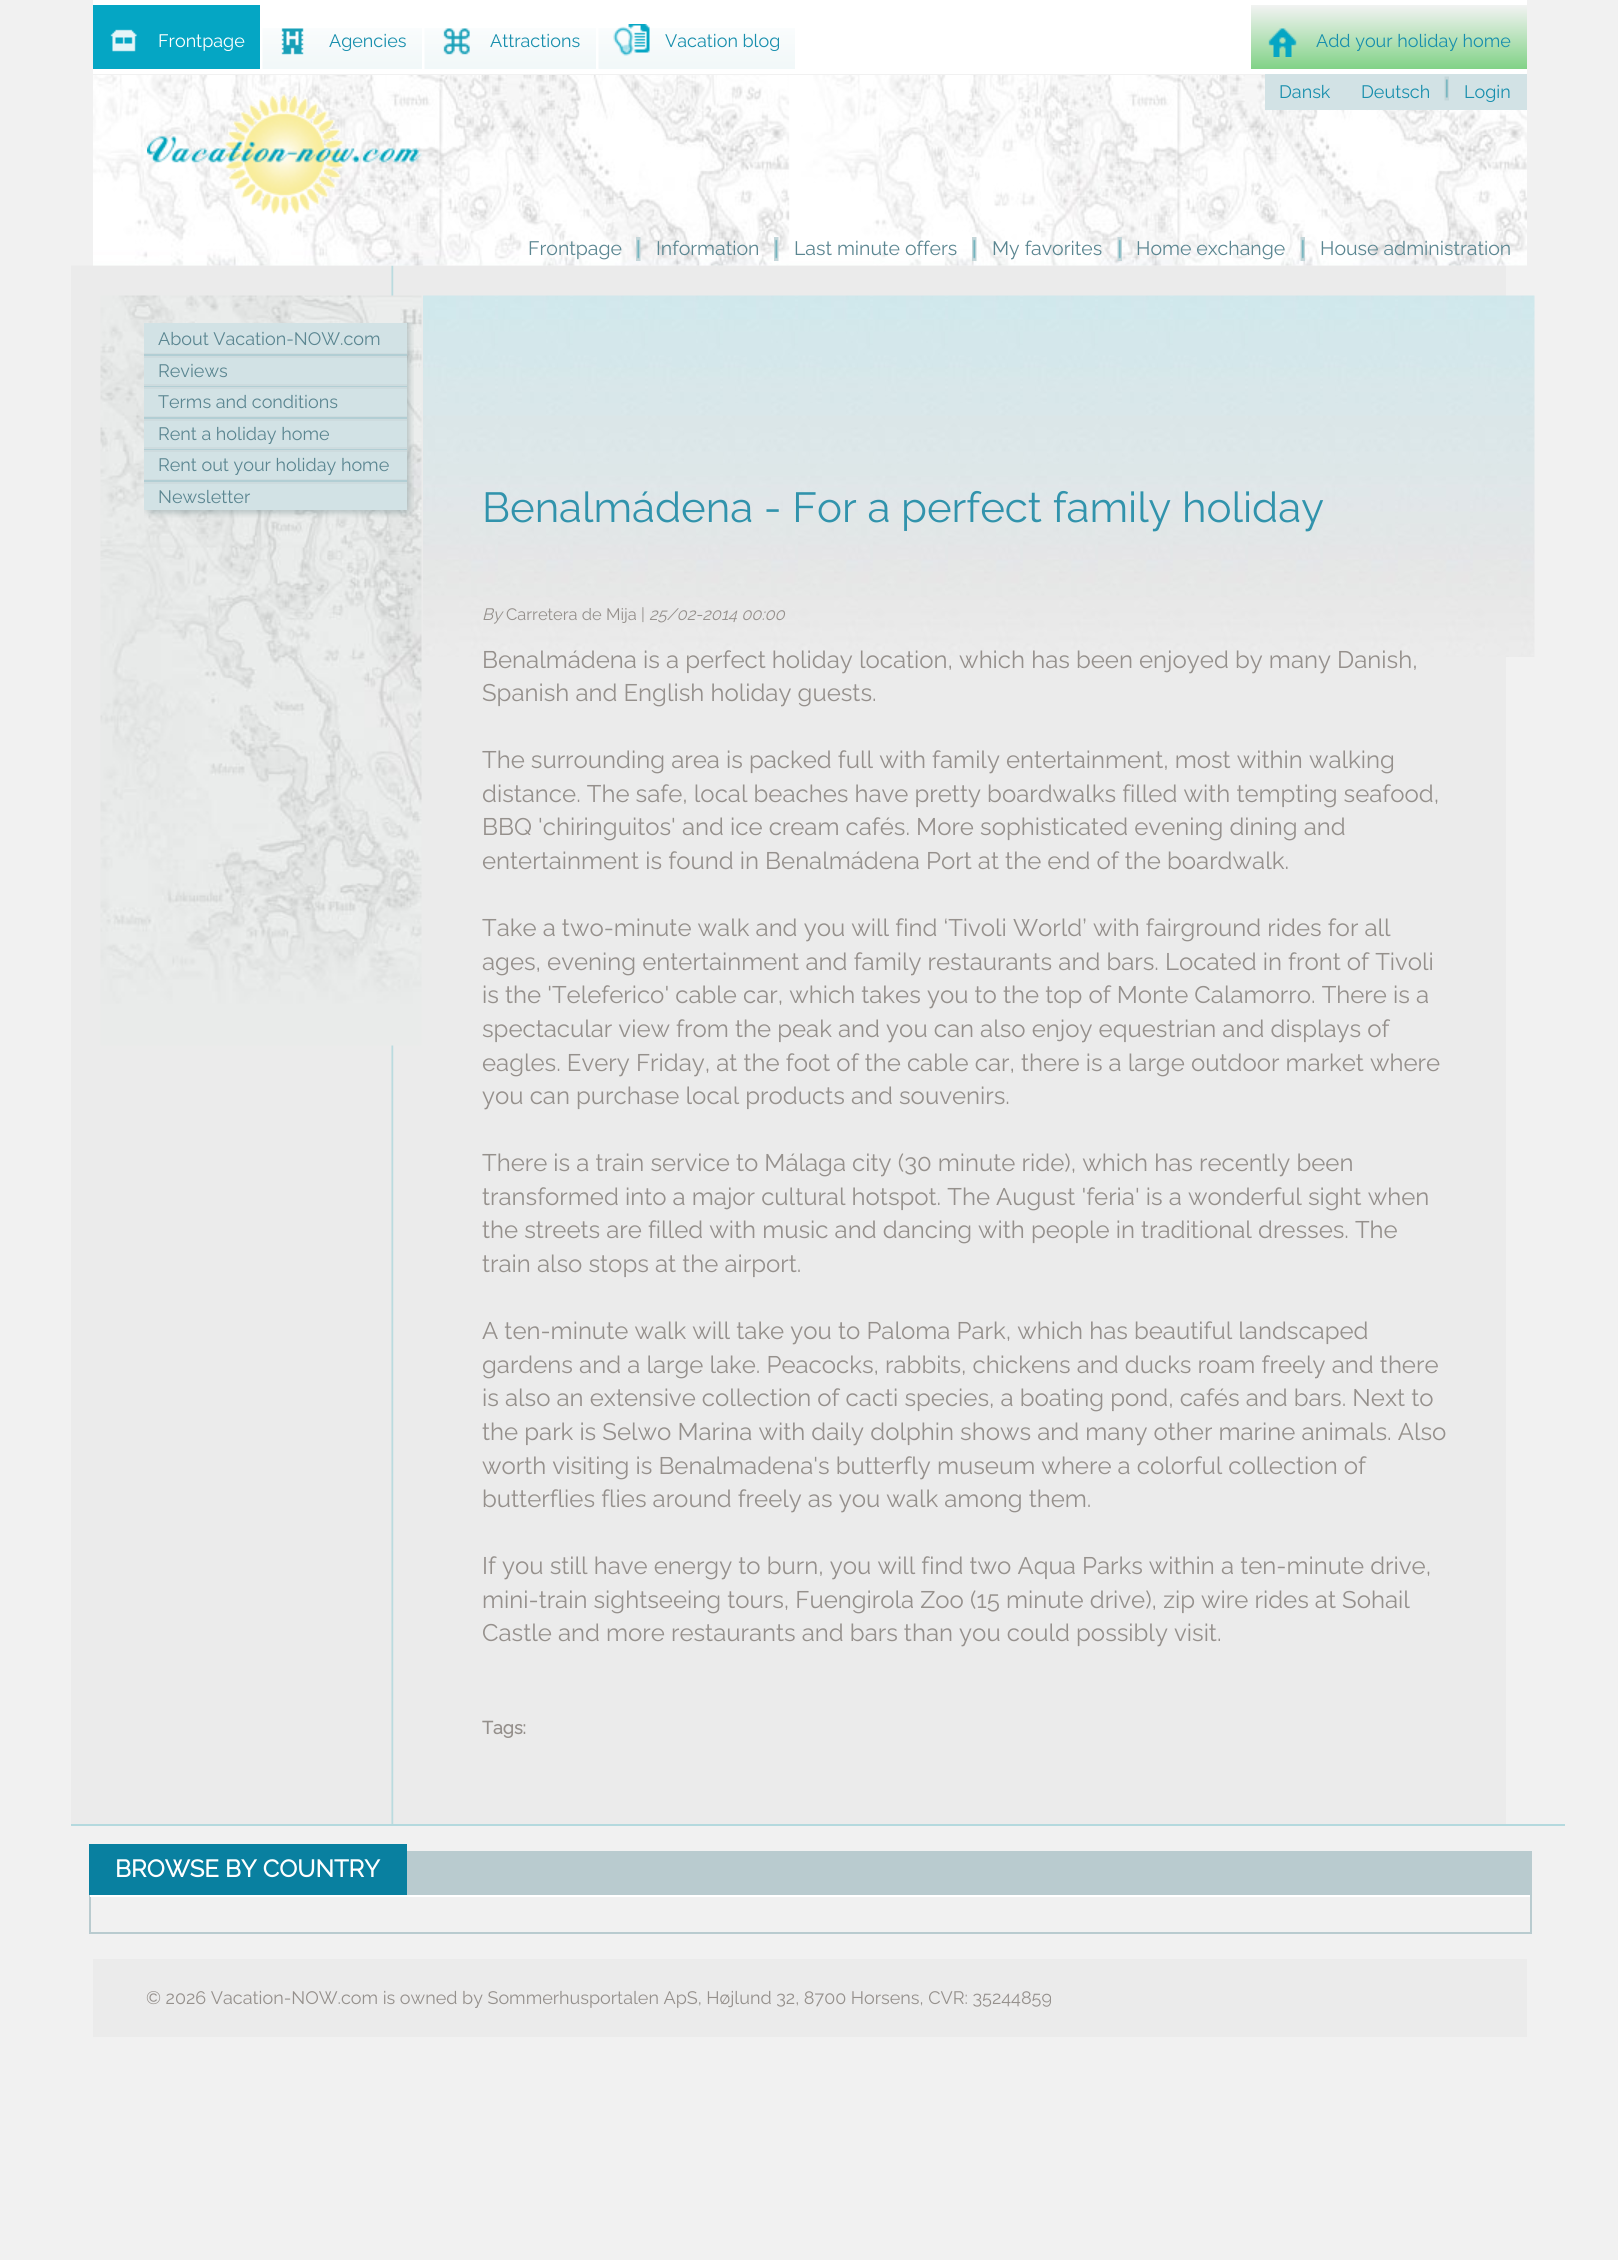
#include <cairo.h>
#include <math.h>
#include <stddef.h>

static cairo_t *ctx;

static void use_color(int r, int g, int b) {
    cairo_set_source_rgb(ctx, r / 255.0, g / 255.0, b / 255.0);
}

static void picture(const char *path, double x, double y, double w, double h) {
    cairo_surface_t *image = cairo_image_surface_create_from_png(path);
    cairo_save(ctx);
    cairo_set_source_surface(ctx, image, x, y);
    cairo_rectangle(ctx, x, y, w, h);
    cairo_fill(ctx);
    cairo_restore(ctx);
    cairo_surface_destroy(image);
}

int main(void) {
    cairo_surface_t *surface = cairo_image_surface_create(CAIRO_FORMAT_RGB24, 1618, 2260);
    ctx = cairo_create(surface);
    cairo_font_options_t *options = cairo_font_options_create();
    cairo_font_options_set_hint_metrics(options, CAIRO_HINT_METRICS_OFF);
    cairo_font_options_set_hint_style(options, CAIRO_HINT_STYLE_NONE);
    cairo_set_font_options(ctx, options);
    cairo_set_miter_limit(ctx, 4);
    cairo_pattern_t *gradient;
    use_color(241, 241, 241);
    cairo_paint(ctx);
    use_color(255, 255, 255);
    cairo_rectangle(ctx, 93, 0, 1434, 74);
    cairo_fill(ctx);
    use_color(5, 166, 196);
    cairo_rectangle(ctx, 93, 5, 167, 64);
    cairo_fill(ctx);
    picture("img1.png", 110, 29, 27, 23);
    cairo_select_font_face(ctx, "Raleway Thin", CAIRO_FONT_SLANT_NORMAL, CAIRO_FONT_WEIGHT_NORMAL);
    cairo_set_font_size(ctx, 18);
    use_color(255, 255, 255);
    cairo_move_to(ctx, 158, 47);
    cairo_show_text(ctx, "Frontpage");
    picture("img2.png", 262, 28, 160, 41);
    picture("img3.png", 281, 28, 23, 27);
    use_color(24, 143, 173);
    cairo_move_to(ctx, 329, 47);
    cairo_show_text(ctx, "Agencies");
    picture("img4.png", 424, 28, 172, 41);
    picture("img5.png", 443, 28, 27, 27);
    cairo_move_to(ctx, 490, 47);
    cairo_show_text(ctx, "Attractions");
    picture("img6.png", 598, 28, 197, 41);
    picture("img7.png", 613, 24, 37, 32);
    cairo_move_to(ctx, 665, 47);
    cairo_show_text(ctx, "Vacation blog");
    gradient = cairo_pattern_create_linear(1389, 69, 1389, 4.5);
    cairo_pattern_add_color_stop_rgba(gradient, 0, 0.506, 0.824, 0.529, 1);
    cairo_pattern_add_color_stop_rgba(gradient, 1, 0.953, 0.953, 0.953, 1);
    cairo_set_source(ctx, gradient);
    cairo_pattern_destroy(gradient);
    cairo_rectangle(ctx, 1251, 5, 276, 64);
    cairo_fill(ctx);
    picture("img8.png", 1268, 28, 29, 29);
    use_color(24, 143, 173);
    cairo_move_to(ctx, 1316, 47);
    cairo_show_text(ctx, "Add your holiday home");
    picture("img17.png", 71, 265, 1435, 1559);
    picture("img10.png", 93, 75, 1434, 191);
    use_color(210, 226, 229);
    cairo_rectangle(ctx, 1265, 74, 262, 36);
    cairo_fill(ctx);
    use_color(24, 143, 173);
    cairo_move_to(ctx, 1279, 98);
    cairo_show_text(ctx, "Dansk");
    cairo_move_to(ctx, 1361, 98);
    cairo_show_text(ctx, "Deutsch");
    picture("img9.png", 1444, 76, 5, 25);
    cairo_move_to(ctx, 1464, 98);
    cairo_show_text(ctx, "Login");
    picture("img11.png", 147, 94, 275, 121);
    cairo_set_font_size(ctx, 19.5);
    use_color(91, 134, 145);
    cairo_move_to(ctx, 528, 255);
    cairo_show_text(ctx, "Frontpage");
    picture("img12.png", 636, 237, 5, 24);
    cairo_move_to(ctx, 656, 255);
    cairo_show_text(ctx, "Information");
    picture("img13.png", 774, 237, 5, 24);
    cairo_move_to(ctx, 794, 255);
    cairo_show_text(ctx, "Last minute offers");
    picture("img14.png", 972, 237, 5, 24);
    cairo_move_to(ctx, 992, 255);
    cairo_show_text(ctx, "My favorites");
    picture("img15.png", 1117, 237, 5, 24);
    cairo_move_to(ctx, 1136, 255);
    cairo_show_text(ctx, "Home exchange");
    picture("img16.png", 1300, 237, 5, 24);
    cairo_move_to(ctx, 1320, 255);
    cairo_show_text(ctx, "House administration");
    use_color(180, 217, 222);
    cairo_rectangle(ctx, 71, 1824, 1494, 2);
    cairo_fill(ctx);
    picture("img18.png", 100, 295, 322, 751);
    picture("img19.png", 144, 322, 270, 196);
    use_color(210, 226, 229);
    cairo_rectangle(ctx, 144, 323, 263, 187);
    cairo_fill(ctx);
    use_color(205, 219, 222);
    cairo_rectangle(ctx, 144, 353, 263, 1);
    cairo_fill(ctx);
    cairo_set_font_size(ctx, 18);
    use_color(91, 134, 145);
    cairo_move_to(ctx, 158, 345);
    cairo_show_text(ctx, "About Vacation-NOW.com");
    use_color(178, 206, 212);
    cairo_rectangle(ctx, 144, 354, 263, 2);
    cairo_fill(ctx);
    use_color(205, 219, 222);
    cairo_rectangle(ctx, 144, 384, 263, 2);
    cairo_fill(ctx);
    cairo_rectangle(ctx, 144, 356, 263, 2);
    cairo_fill(ctx);
    use_color(91, 134, 145);
    cairo_move_to(ctx, 158, 377);
    cairo_show_text(ctx, "Reviews");
    use_color(178, 206, 212);
    cairo_rectangle(ctx, 144, 386, 263, 1);
    cairo_fill(ctx);
    use_color(205, 219, 222);
    cairo_rectangle(ctx, 144, 416, 263, 1);
    cairo_fill(ctx);
    cairo_rectangle(ctx, 144, 387, 263, 2);
    cairo_fill(ctx);
    use_color(91, 134, 145);
    cairo_move_to(ctx, 158, 408);
    cairo_show_text(ctx, "Terms and conditions");
    use_color(178, 206, 212);
    cairo_rectangle(ctx, 144, 417, 263, 2);
    cairo_fill(ctx);
    use_color(205, 219, 222);
    cairo_rectangle(ctx, 144, 447, 263, 2);
    cairo_fill(ctx);
    cairo_rectangle(ctx, 144, 419, 263, 2);
    cairo_fill(ctx);
    use_color(91, 134, 145);
    cairo_move_to(ctx, 158, 440);
    cairo_show_text(ctx, "Rent a holiday home");
    use_color(178, 206, 212);
    cairo_rectangle(ctx, 144, 449, 263, 1);
    cairo_fill(ctx);
    use_color(205, 219, 222);
    cairo_rectangle(ctx, 144, 479, 263, 1);
    cairo_fill(ctx);
    cairo_rectangle(ctx, 144, 450, 263, 2);
    cairo_fill(ctx);
    use_color(91, 134, 145);
    cairo_move_to(ctx, 158, 471);
    cairo_show_text(ctx, "Rent out your holiday home");
    use_color(178, 206, 212);
    cairo_rectangle(ctx, 144, 480, 263, 2);
    cairo_fill(ctx);
    use_color(205, 219, 222);
    cairo_rectangle(ctx, 144, 482, 263, 2);
    cairo_fill(ctx);
    use_color(91, 134, 145);
    cairo_move_to(ctx, 158, 503);
    cairo_show_text(ctx, "Newsletter");
    picture("img20.png", 423, 295, 1112, 362);
    cairo_set_font_size(ctx, 42);
    use_color(49, 147, 172);
    cairo_move_to(ctx, 482, 522);
    cairo_show_text(ctx, "Benalmádena - For a perfect family holiday");
    cairo_select_font_face(ctx, "Raleway Thin", CAIRO_FONT_SLANT_ITALIC, CAIRO_FONT_WEIGHT_NORMAL);
    cairo_set_font_size(ctx, 16.5);
    use_color(149, 144, 140);
    cairo_move_to(ctx, 482, 620);
    cairo_show_text(ctx, "By");
    cairo_select_font_face(ctx, "Raleway Thin", CAIRO_FONT_SLANT_NORMAL, CAIRO_FONT_WEIGHT_NORMAL);
    cairo_move_to(ctx, 506, 620);
    cairo_show_text(ctx, "Carretera de Mija |");
    cairo_select_font_face(ctx, "Raleway Thin", CAIRO_FONT_SLANT_ITALIC, CAIRO_FONT_WEIGHT_NORMAL);
    cairo_move_to(ctx, 649, 620);
    cairo_show_text(ctx, "25/02-2014 00:00");
    cairo_select_font_face(ctx, "Raleway Thin", CAIRO_FONT_SLANT_NORMAL, CAIRO_FONT_WEIGHT_NORMAL);
    cairo_set_font_size(ctx, 24);
    cairo_move_to(ctx, 482, 668);
    cairo_show_text(ctx, "Benalmádena is a perfect holiday location, which has been enjoyed by many Danish,");
    cairo_move_to(ctx, 482, 701);
    cairo_show_text(ctx, "Spanish and English holiday guests.");
    cairo_move_to(ctx, 482, 768);
    cairo_show_text(ctx, "The surrounding area is packed full with family entertainment, most within walking");
    cairo_move_to(ctx, 482, 802);
    cairo_show_text(ctx, "distance. The safe, local beaches have pretty boardwalks filled with tempting seafood,");
    cairo_move_to(ctx, 482, 835);
    cairo_show_text(ctx, "BBQ 'chiringuitos' and ice cream cafés. More sophisticated evening dining and");
    cairo_move_to(ctx, 482, 869);
    cairo_show_text(ctx, "entertainment is found in Benalmádena Port at the end of the boardwalk.");
    cairo_move_to(ctx, 482, 936);
    cairo_show_text(ctx, "Take a two-minute walk and you will find ‘Tivoli World’ with fairground rides for all");
    cairo_move_to(ctx, 482, 970);
    cairo_show_text(ctx, "ages, evening entertainment and family restaurants and bars. Located in front of Tivoli");
    cairo_move_to(ctx, 482, 1003);
    cairo_show_text(ctx, "is the 'Teleferico' cable car, which takes you to the top of Monte Calamorro. There is a");
    cairo_move_to(ctx, 482, 1037);
    cairo_show_text(ctx, "spectacular view from the peak and you can also enjoy equestrian and displays of");
    cairo_move_to(ctx, 482, 1071);
    cairo_show_text(ctx, "eagles. Every Friday, at the foot of the cable car, there is a large outdoor market where");
    cairo_move_to(ctx, 482, 1104);
    cairo_show_text(ctx, "you can purchase local products and souvenirs.");
    cairo_move_to(ctx, 482, 1171);
    cairo_show_text(ctx, "There is a train service to Málaga city (30 minute ride), which has recently been");
    cairo_move_to(ctx, 482, 1205);
    cairo_show_text(ctx, "transformed into a major cultural hotspot. The August 'feria' is a wonderful sight when");
    cairo_move_to(ctx, 482, 1238);
    cairo_show_text(ctx, "the streets are filled with music and dancing with people in traditional dresses. The");
    cairo_move_to(ctx, 482, 1272);
    cairo_show_text(ctx, "train also stops at the airport.");
    cairo_move_to(ctx, 482, 1339);
    cairo_show_text(ctx, "A ten-minute walk will take you to Paloma Park, which has beautiful landscaped");
    cairo_move_to(ctx, 482, 1373);
    cairo_show_text(ctx, "gardens and a large lake. Peacocks, rabbits, chickens and ducks roam freely and there");
    cairo_move_to(ctx, 482, 1406);
    cairo_show_text(ctx, "is also an extensive collection of cacti species, a boating pond, cafés and bars. Next to");
    cairo_move_to(ctx, 482, 1440);
    cairo_show_text(ctx, "the park is Selwo Marina with daily dolphin shows and many other marine animals. Also");
    cairo_move_to(ctx, 482, 1474);
    cairo_show_text(ctx, "worth visiting is Benalmadena's butterfly museum where a colorful collection of");
    cairo_move_to(ctx, 482, 1507);
    cairo_show_text(ctx, "butterflies flies around freely as you walk among them.");
    cairo_move_to(ctx, 482, 1574);
    cairo_show_text(ctx, "If you still have energy to burn, you will find two Aqua Parks within a ten-minute drive,");
    cairo_move_to(ctx, 482, 1608);
    cairo_show_text(ctx, "mini-train sightseeing tours, Fuengirola Zoo (15 minute drive), zip wire rides at Sohail");
    cairo_move_to(ctx, 482, 1641);
    cairo_show_text(ctx, "Castle and more restaurants and bars than you could possibly visit.");
    cairo_select_font_face(ctx, "Raleway", CAIRO_FONT_SLANT_NORMAL, CAIRO_FONT_WEIGHT_BOLD);
    cairo_set_font_size(ctx, 18);
    cairo_move_to(ctx, 482, 1734);
    cairo_show_text(ctx, "Tags:");
    use_color(185, 203, 207);
    cairo_rectangle(ctx, 407, 1851, 1125, 44);
    cairo_fill(ctx);
    use_color(9, 128, 160);
    cairo_rectangle(ctx, 89, 1844, 318, 51);
    cairo_fill(ctx);
    cairo_set_font_size(ctx, 24);
    use_color(255, 255, 255);
    cairo_move_to(ctx, 115, 1877);
    cairo_show_text(ctx, "BROWSE BY COUNTRY");
    use_color(185, 203, 207);
    cairo_rectangle(ctx, 1530, 1895, 2, 39);
    cairo_fill(ctx);
    cairo_rectangle(ctx, 89, 1932, 1443, 2);
    cairo_fill(ctx);
    cairo_rectangle(ctx, 89, 1895, 2, 39);
    cairo_fill(ctx);
    use_color(255, 255, 255);
    cairo_rectangle(ctx, 90, 1895, 1440, 2);
    cairo_fill(ctx);
    use_color(235, 235, 235);
    cairo_rectangle(ctx, 93, 1959, 1434, 78);
    cairo_fill(ctx);
    cairo_select_font_face(ctx, "Raleway Thin", CAIRO_FONT_SLANT_NORMAL, CAIRO_FONT_WEIGHT_NORMAL);
    cairo_set_font_size(ctx, 18);
    use_color(149, 144, 140);
    cairo_move_to(ctx, 146, 2004);
    cairo_show_text(ctx, "© 2026 Vacation-NOW.com is owned by Sommerhusportalen ApS, Højlund 32, 8700 Horsens, CVR: 35244859");
    cairo_surface_write_to_png(surface, "result.png");
    cairo_font_options_destroy(options);
    cairo_destroy(ctx);
    cairo_surface_destroy(surface);
    return 0;
}
